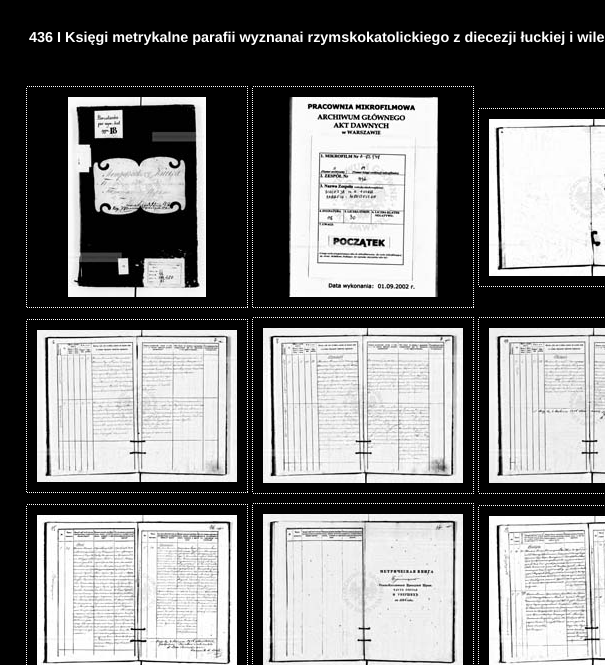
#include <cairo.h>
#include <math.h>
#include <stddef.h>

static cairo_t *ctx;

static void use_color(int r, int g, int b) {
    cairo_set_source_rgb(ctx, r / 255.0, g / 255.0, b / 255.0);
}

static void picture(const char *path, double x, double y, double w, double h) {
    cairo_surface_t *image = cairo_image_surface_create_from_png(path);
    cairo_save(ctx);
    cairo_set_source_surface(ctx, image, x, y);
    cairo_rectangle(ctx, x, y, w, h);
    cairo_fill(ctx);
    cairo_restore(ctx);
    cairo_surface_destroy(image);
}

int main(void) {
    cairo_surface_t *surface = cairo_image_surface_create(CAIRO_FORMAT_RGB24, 605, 665);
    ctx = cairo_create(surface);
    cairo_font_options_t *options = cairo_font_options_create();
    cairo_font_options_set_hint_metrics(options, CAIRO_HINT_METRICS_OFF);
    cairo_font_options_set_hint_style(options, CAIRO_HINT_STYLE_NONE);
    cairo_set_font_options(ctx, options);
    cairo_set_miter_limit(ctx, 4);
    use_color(0, 0, 0);
    cairo_paint(ctx);
    cairo_select_font_face(ctx, "Liberation Sans", CAIRO_FONT_SLANT_NORMAL, CAIRO_FONT_WEIGHT_BOLD);
    cairo_set_font_size(ctx, 14.4);
    use_color(255, 255, 255);
    cairo_move_to(ctx, 29, 42);
    cairo_show_text(ctx, "436 I Księgi metrykalne parafii wyznanai rzymskokatolickiego z diecezji łuckiej i wile");
    picture("img1.png", 27, 86, 221, 1);
    picture("img2.png", 26, 88, 1, 219);
    picture("img3.png", 68, 97, 138, 200);
    picture("img2.png", 247, 88, 1, 219);
    picture("img1.png", 27, 307, 221, 1);
    picture("img1.png", 253, 86, 221, 1);
    picture("img2.png", 252, 88, 1, 219);
    picture("img4.png", 289, 97, 149, 200);
    picture("img2.png", 473, 88, 1, 219);
    picture("img1.png", 253, 307, 221, 1);
    picture("img5.png", 479, 108, 125, 1);
    picture("img6.png", 478, 110, 1, 175);
    picture("img7.png", 489, 119, 116, 157);
    picture("img5.png", 479, 286, 125, 1);
    picture("img1.png", 27, 319, 221, 1);
    picture("img8.png", 26, 321, 1, 171);
    picture("img9.png", 37, 330, 200, 152);
    picture("img8.png", 247, 321, 1, 171);
    picture("img1.png", 27, 492, 221, 1);
    picture("img1.png", 253, 317, 221, 1);
    picture("img10.png", 252, 319, 1, 173);
    picture("img11.png", 263, 328, 200, 155);
    picture("img10.png", 473, 319, 1, 173);
    picture("img1.png", 253, 493, 221, 1);
    picture("img5.png", 479, 317, 125, 1);
    picture("img10.png", 478, 319, 1, 173);
    picture("img12.png", 489, 328, 116, 155);
    picture("img5.png", 479, 493, 125, 1);
    picture("img1.png", 27, 504, 221, 1);
    picture("img13.png", 26, 506, 1, 159);
    picture("img14.png", 37, 515, 200, 150);
    picture("img13.png", 247, 506, 1, 159);
    picture("img1.png", 253, 503, 221, 1);
    picture("img13.png", 252, 505, 1, 159);
    picture("img15.png", 263, 514, 200, 151);
    picture("img13.png", 473, 505, 1, 159);
    picture("img5.png", 479, 505, 125, 1);
    picture("img16.png", 478, 507, 1, 157);
    picture("img17.png", 489, 516, 116, 149);
    cairo_surface_write_to_png(surface, "result.png");
    cairo_font_options_destroy(options);
    cairo_destroy(ctx);
    cairo_surface_destroy(surface);
    return 0;
}
